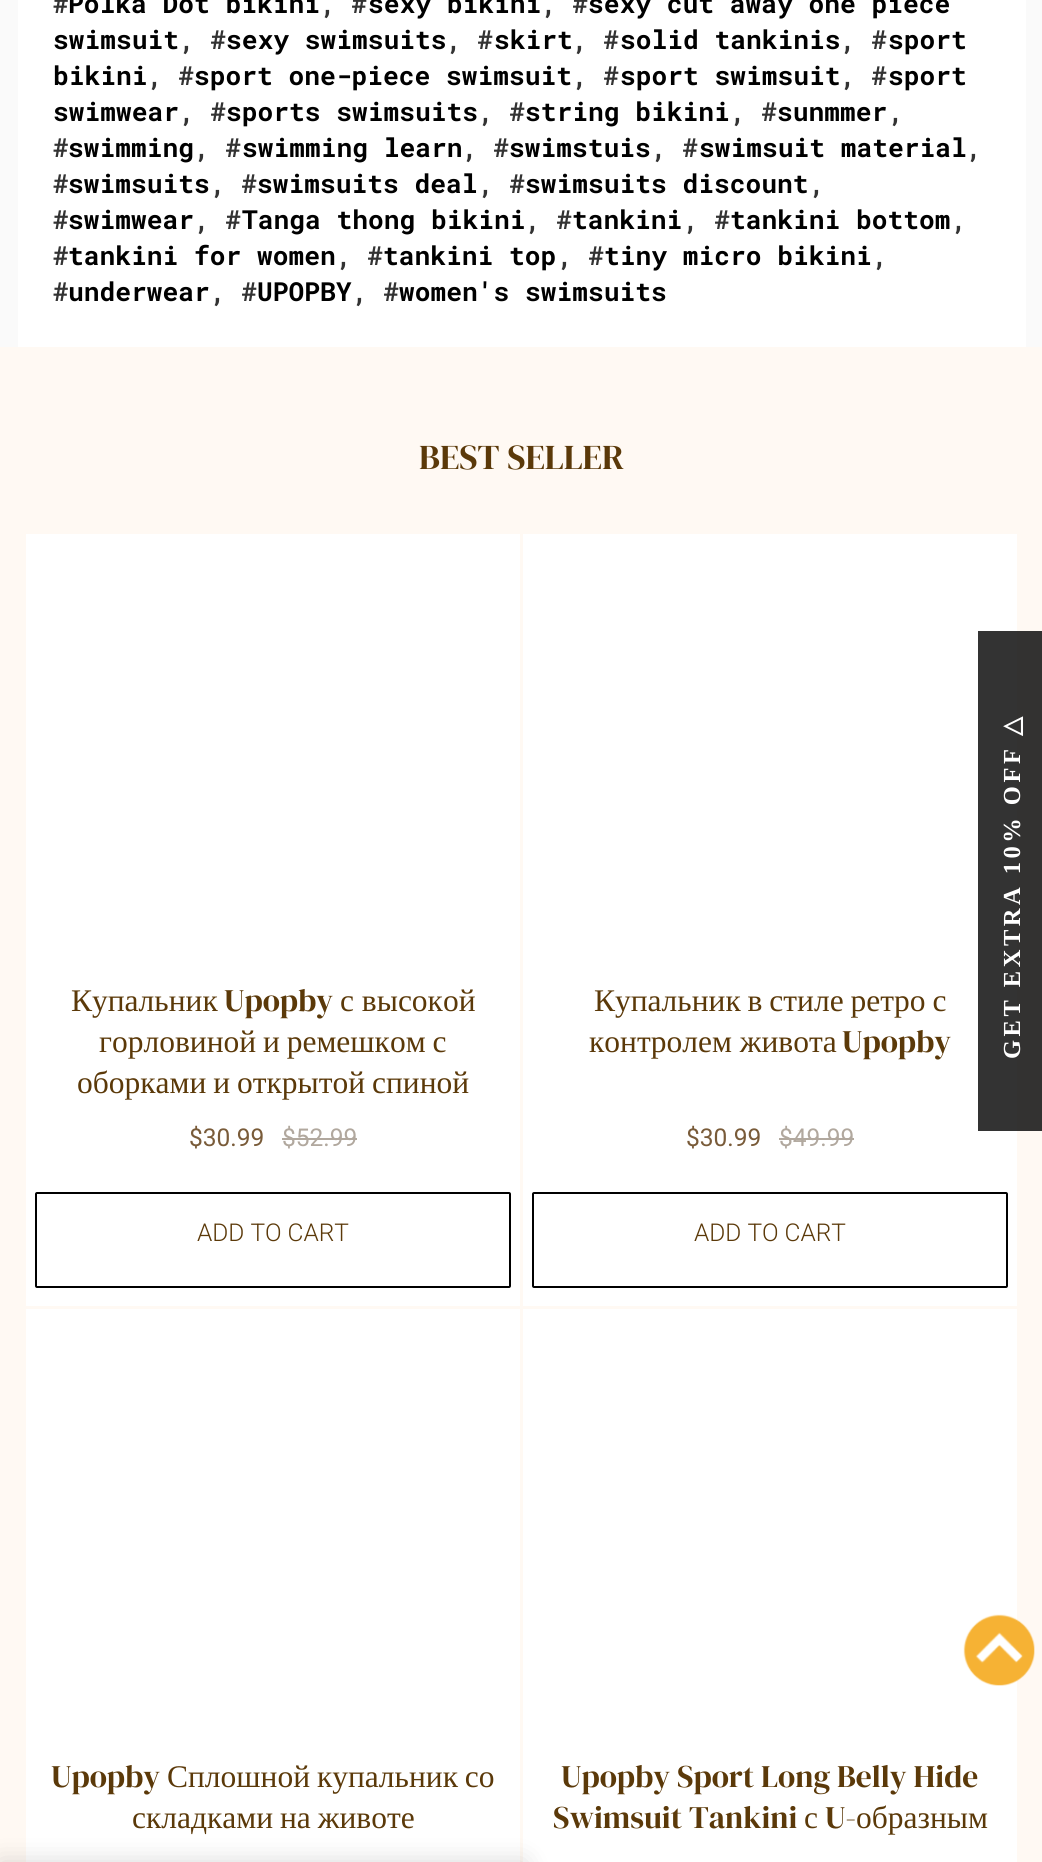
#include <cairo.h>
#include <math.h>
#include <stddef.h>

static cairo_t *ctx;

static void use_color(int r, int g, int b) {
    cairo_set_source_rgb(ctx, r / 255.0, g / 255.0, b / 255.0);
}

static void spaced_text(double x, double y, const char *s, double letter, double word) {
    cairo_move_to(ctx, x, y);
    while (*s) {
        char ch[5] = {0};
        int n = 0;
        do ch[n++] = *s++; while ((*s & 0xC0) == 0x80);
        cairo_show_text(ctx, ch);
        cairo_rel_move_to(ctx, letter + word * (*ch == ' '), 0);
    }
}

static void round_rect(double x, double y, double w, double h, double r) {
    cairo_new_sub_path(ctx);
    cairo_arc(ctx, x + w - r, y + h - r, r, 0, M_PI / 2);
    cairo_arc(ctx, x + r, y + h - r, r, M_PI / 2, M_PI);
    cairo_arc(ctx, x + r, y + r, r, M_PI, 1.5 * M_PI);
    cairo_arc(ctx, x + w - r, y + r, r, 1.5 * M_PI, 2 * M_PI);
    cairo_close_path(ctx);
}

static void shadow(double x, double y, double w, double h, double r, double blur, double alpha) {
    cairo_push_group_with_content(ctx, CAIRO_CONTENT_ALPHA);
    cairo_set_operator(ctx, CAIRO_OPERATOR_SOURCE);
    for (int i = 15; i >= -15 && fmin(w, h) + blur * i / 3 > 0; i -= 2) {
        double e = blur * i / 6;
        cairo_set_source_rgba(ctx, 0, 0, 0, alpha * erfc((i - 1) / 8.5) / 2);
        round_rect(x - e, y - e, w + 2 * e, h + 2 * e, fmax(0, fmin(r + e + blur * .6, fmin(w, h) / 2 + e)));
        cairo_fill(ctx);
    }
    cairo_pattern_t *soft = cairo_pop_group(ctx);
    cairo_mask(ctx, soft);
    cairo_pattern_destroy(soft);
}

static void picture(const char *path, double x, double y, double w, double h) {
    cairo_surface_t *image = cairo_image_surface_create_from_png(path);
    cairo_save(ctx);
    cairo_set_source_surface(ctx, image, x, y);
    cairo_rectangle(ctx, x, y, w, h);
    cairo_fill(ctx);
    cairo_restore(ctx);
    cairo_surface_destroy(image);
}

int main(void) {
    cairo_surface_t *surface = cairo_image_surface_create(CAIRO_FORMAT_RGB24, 1042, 1862);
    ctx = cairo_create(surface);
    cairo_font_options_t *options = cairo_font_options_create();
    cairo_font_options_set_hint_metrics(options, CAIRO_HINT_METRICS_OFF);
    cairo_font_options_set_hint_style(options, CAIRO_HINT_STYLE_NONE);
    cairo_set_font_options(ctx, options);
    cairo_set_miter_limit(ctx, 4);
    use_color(250, 250, 250);
    cairo_paint(ctx);
    use_color(255, 255, 255);
    cairo_rectangle(ctx, 18, 0, 1008, 347);
    cairo_fill(ctx);
    cairo_select_font_face(ctx, "Roboto Mono", CAIRO_FONT_SLANT_NORMAL, CAIRO_FONT_WEIGHT_BOLD);
    cairo_set_font_size(ctx, 26.25);
    use_color(51, 51, 51);
    cairo_move_to(ctx, 53, 13);
    cairo_show_text(ctx, "#");
    use_color(0, 0, 0);
    cairo_move_to(ctx, 68, 13);
    cairo_show_text(ctx, "Polka Dot bikini");
    use_color(51, 51, 51);
    cairo_move_to(ctx, 320, 13);
    cairo_show_text(ctx, ", #");
    use_color(0, 0, 0);
    cairo_move_to(ctx, 368, 13);
    cairo_show_text(ctx, "sexy bikini");
    use_color(51, 51, 51);
    cairo_move_to(ctx, 541, 13);
    cairo_show_text(ctx, ", #");
    use_color(0, 0, 0);
    cairo_move_to(ctx, 588, 13);
    cairo_show_text(ctx, "sexy cut away one piece");
    cairo_move_to(ctx, 53, 49);
    cairo_show_text(ctx, "swimsuit");
    use_color(51, 51, 51);
    cairo_move_to(ctx, 179, 49);
    cairo_show_text(ctx, ", #");
    use_color(0, 0, 0);
    cairo_move_to(ctx, 226, 49);
    cairo_show_text(ctx, "sexy swimsuits");
    use_color(51, 51, 51);
    cairo_move_to(ctx, 446, 49);
    cairo_show_text(ctx, ", #");
    use_color(0, 0, 0);
    cairo_move_to(ctx, 494, 49);
    cairo_show_text(ctx, "skirt");
    use_color(51, 51, 51);
    cairo_move_to(ctx, 572, 49);
    cairo_show_text(ctx, ", #");
    use_color(0, 0, 0);
    cairo_move_to(ctx, 620, 49);
    cairo_show_text(ctx, "solid tankinis");
    use_color(51, 51, 51);
    cairo_move_to(ctx, 840, 49);
    cairo_show_text(ctx, ", #");
    use_color(0, 0, 0);
    cairo_move_to(ctx, 888, 49);
    cairo_show_text(ctx, "sport");
    cairo_move_to(ctx, 53, 85);
    cairo_show_text(ctx, "bikini");
    use_color(51, 51, 51);
    cairo_move_to(ctx, 147, 85);
    cairo_show_text(ctx, ", #");
    use_color(0, 0, 0);
    cairo_move_to(ctx, 194, 85);
    cairo_show_text(ctx, "sport one-piece swimsuit");
    use_color(51, 51, 51);
    cairo_move_to(ctx, 572, 85);
    cairo_show_text(ctx, ", #");
    use_color(0, 0, 0);
    cairo_move_to(ctx, 620, 85);
    cairo_show_text(ctx, "sport swimsuit");
    use_color(51, 51, 51);
    cairo_move_to(ctx, 840, 85);
    cairo_show_text(ctx, ", #");
    use_color(0, 0, 0);
    cairo_move_to(ctx, 888, 85);
    cairo_show_text(ctx, "sport");
    cairo_move_to(ctx, 53, 121);
    cairo_show_text(ctx, "swimwear");
    use_color(51, 51, 51);
    cairo_move_to(ctx, 179, 121);
    cairo_show_text(ctx, ", #");
    use_color(0, 0, 0);
    cairo_move_to(ctx, 226, 121);
    cairo_show_text(ctx, "sports swimsuits");
    use_color(51, 51, 51);
    cairo_move_to(ctx, 478, 121);
    cairo_show_text(ctx, ", #");
    use_color(0, 0, 0);
    cairo_move_to(ctx, 525, 121);
    cairo_show_text(ctx, "string bikini");
    use_color(51, 51, 51);
    cairo_move_to(ctx, 730, 121);
    cairo_show_text(ctx, ", #");
    use_color(0, 0, 0);
    cairo_move_to(ctx, 777, 121);
    cairo_show_text(ctx, "sunmmer");
    use_color(51, 51, 51);
    cairo_move_to(ctx, 888, 121);
    cairo_show_text(ctx, ",");
    cairo_move_to(ctx, 53, 157);
    cairo_show_text(ctx, "#");
    use_color(0, 0, 0);
    cairo_move_to(ctx, 68, 157);
    cairo_show_text(ctx, "swimming");
    use_color(51, 51, 51);
    cairo_move_to(ctx, 194, 157);
    cairo_show_text(ctx, ", #");
    use_color(0, 0, 0);
    cairo_move_to(ctx, 242, 157);
    cairo_show_text(ctx, "swimming learn");
    use_color(51, 51, 51);
    cairo_move_to(ctx, 462, 157);
    cairo_show_text(ctx, ", #");
    use_color(0, 0, 0);
    cairo_move_to(ctx, 509, 157);
    cairo_show_text(ctx, "swimstuis");
    use_color(51, 51, 51);
    cairo_move_to(ctx, 651, 157);
    cairo_show_text(ctx, ", #");
    use_color(0, 0, 0);
    cairo_move_to(ctx, 699, 157);
    cairo_show_text(ctx, "swimsuit material");
    use_color(51, 51, 51);
    cairo_move_to(ctx, 966, 157);
    cairo_show_text(ctx, ",");
    cairo_move_to(ctx, 53, 193);
    cairo_show_text(ctx, "#");
    use_color(0, 0, 0);
    cairo_move_to(ctx, 68, 193);
    cairo_show_text(ctx, "swimsuits");
    use_color(51, 51, 51);
    cairo_move_to(ctx, 210, 193);
    cairo_show_text(ctx, ", #");
    use_color(0, 0, 0);
    cairo_move_to(ctx, 257, 193);
    cairo_show_text(ctx, "swimsuits deal");
    use_color(51, 51, 51);
    cairo_move_to(ctx, 478, 193);
    cairo_show_text(ctx, ", #");
    use_color(0, 0, 0);
    cairo_move_to(ctx, 525, 193);
    cairo_show_text(ctx, "swimsuits discount");
    use_color(51, 51, 51);
    cairo_move_to(ctx, 809, 193);
    cairo_show_text(ctx, ",");
    cairo_move_to(ctx, 53, 229);
    cairo_show_text(ctx, "#");
    use_color(0, 0, 0);
    cairo_move_to(ctx, 68, 229);
    cairo_show_text(ctx, "swimwear");
    use_color(51, 51, 51);
    cairo_move_to(ctx, 194, 229);
    cairo_show_text(ctx, ", #");
    use_color(0, 0, 0);
    cairo_move_to(ctx, 242, 229);
    cairo_show_text(ctx, "Tanga thong bikini");
    use_color(51, 51, 51);
    cairo_move_to(ctx, 525, 229);
    cairo_show_text(ctx, ", #");
    use_color(0, 0, 0);
    cairo_move_to(ctx, 572, 229);
    cairo_show_text(ctx, "tankini");
    use_color(51, 51, 51);
    cairo_move_to(ctx, 683, 229);
    cairo_show_text(ctx, ", #");
    use_color(0, 0, 0);
    cairo_move_to(ctx, 730, 229);
    cairo_show_text(ctx, "tankini bottom");
    use_color(51, 51, 51);
    cairo_move_to(ctx, 951, 229);
    cairo_show_text(ctx, ",");
    cairo_move_to(ctx, 53, 265);
    cairo_show_text(ctx, "#");
    use_color(0, 0, 0);
    cairo_move_to(ctx, 68, 265);
    cairo_show_text(ctx, "tankini for women");
    use_color(51, 51, 51);
    cairo_move_to(ctx, 336, 265);
    cairo_show_text(ctx, ", #");
    use_color(0, 0, 0);
    cairo_move_to(ctx, 383, 265);
    cairo_show_text(ctx, "tankini top");
    use_color(51, 51, 51);
    cairo_move_to(ctx, 557, 265);
    cairo_show_text(ctx, ", #");
    use_color(0, 0, 0);
    cairo_move_to(ctx, 604, 265);
    cairo_show_text(ctx, "tiny micro bikini");
    use_color(51, 51, 51);
    cairo_move_to(ctx, 872, 265);
    cairo_show_text(ctx, ",");
    cairo_move_to(ctx, 53, 301);
    cairo_show_text(ctx, "#");
    use_color(0, 0, 0);
    cairo_move_to(ctx, 68, 301);
    cairo_show_text(ctx, "underwear");
    use_color(51, 51, 51);
    cairo_move_to(ctx, 210, 301);
    cairo_show_text(ctx, ", #");
    use_color(0, 0, 0);
    cairo_move_to(ctx, 257, 301);
    cairo_show_text(ctx, "UPOPBY");
    use_color(51, 51, 51);
    cairo_move_to(ctx, 352, 301);
    cairo_show_text(ctx, ", #");
    use_color(0, 0, 0);
    cairo_move_to(ctx, 399, 301);
    cairo_show_text(ctx, "women's swimsuits");
    use_color(255, 249, 243);
    cairo_rectangle(ctx, 0, 347, 1042, 1515);
    cairo_fill(ctx);
    use_color(51, 50, 49);
    cairo_rectangle(ctx, 1017, 631, 25, 500);
    cairo_fill(ctx);
    cairo_select_font_face(ctx, "DM Serif Display", CAIRO_FONT_SLANT_NORMAL, CAIRO_FONT_WEIGHT_NORMAL);
    cairo_set_font_size(ctx, 35);
    use_color(91, 57, 9);
    cairo_move_to(ctx, 419, 469);
    cairo_show_text(ctx, "BEST SELLER");
    use_color(255, 255, 255);
    cairo_rectangle(ctx, 26, 534, 494, 772);
    cairo_fill(ctx);
    cairo_select_font_face(ctx, "Liberation Serif", CAIRO_FONT_SLANT_NORMAL, CAIRO_FONT_WEIGHT_NORMAL);
    cairo_set_font_size(ctx, 31.5);
    use_color(91, 57, 9);
    cairo_move_to(ctx, 71, 1011);
    cairo_show_text(ctx, "Купальник");
    cairo_select_font_face(ctx, "DM Serif Display", CAIRO_FONT_SLANT_NORMAL, CAIRO_FONT_WEIGHT_NORMAL);
    cairo_move_to(ctx, 224, 1011);
    cairo_show_text(ctx, "Upopby");
    cairo_select_font_face(ctx, "Liberation Serif", CAIRO_FONT_SLANT_NORMAL, CAIRO_FONT_WEIGHT_NORMAL);
    cairo_move_to(ctx, 340, 1011);
    cairo_show_text(ctx, "с высокой");
    spaced_text(99, 1052, "горловиной и ремешком с", 0, -1);
    spaced_text(77, 1093, "оборками и открытой спиной", 0, -1);
    cairo_select_font_face(ctx, "Roboto", CAIRO_FONT_SLANT_NORMAL, CAIRO_FONT_WEIGHT_NORMAL);
    cairo_set_font_size(ctx, 24.5);
    use_color(121, 91, 57);
    cairo_move_to(ctx, 189, 1146);
    cairo_show_text(ctx, "$30.99");
    use_color(177, 168, 158);
    cairo_move_to(ctx, 282, 1146);
    cairo_show_text(ctx, "$52.99");
    cairo_rectangle(ctx, 282, 1138, 75, 2);
    cairo_fill(ctx);
    round_rect(36, 1193, 474, 94, 1);
    use_color(0, 0, 0);
    cairo_stroke(ctx);
    cairo_select_font_face(ctx, "Roboto Light", CAIRO_FONT_SLANT_NORMAL, CAIRO_FONT_WEIGHT_NORMAL);
    use_color(91, 57, 9);
    cairo_move_to(ctx, 197, 1241);
    cairo_show_text(ctx, "ADD TO CART");
    use_color(255, 255, 255);
    cairo_rectangle(ctx, 523, 534, 494, 772);
    cairo_fill(ctx);
    use_color(51, 51, 51);
    cairo_rectangle(ctx, 978, 631, 39, 500);
    cairo_fill(ctx);
    cairo_select_font_face(ctx, "Liberation Serif", CAIRO_FONT_SLANT_NORMAL, CAIRO_FONT_WEIGHT_NORMAL);
    cairo_set_font_size(ctx, 31.5);
    use_color(91, 57, 9);
    spaced_text(594, 1011, "Купальник в стиле ретро с", 0, -1);
    cairo_move_to(ctx, 589, 1052);
    cairo_show_text(ctx, "контролем живота");
    cairo_select_font_face(ctx, "DM Serif Display", CAIRO_FONT_SLANT_NORMAL, CAIRO_FONT_WEIGHT_NORMAL);
    cairo_move_to(ctx, 842, 1052);
    cairo_show_text(ctx, "Upopby");
    cairo_select_font_face(ctx, "Roboto", CAIRO_FONT_SLANT_NORMAL, CAIRO_FONT_WEIGHT_NORMAL);
    cairo_set_font_size(ctx, 24.5);
    use_color(121, 91, 57);
    cairo_move_to(ctx, 686, 1146);
    cairo_show_text(ctx, "$30.99");
    use_color(177, 168, 158);
    cairo_move_to(ctx, 779, 1146);
    cairo_show_text(ctx, "$49.99");
    cairo_rectangle(ctx, 779, 1138, 75, 2);
    cairo_fill(ctx);
    round_rect(533, 1193, 474, 94, 1);
    use_color(0, 0, 0);
    cairo_stroke(ctx);
    cairo_select_font_face(ctx, "Roboto Light", CAIRO_FONT_SLANT_NORMAL, CAIRO_FONT_WEIGHT_NORMAL);
    use_color(91, 57, 9);
    cairo_move_to(ctx, 694, 1241);
    cairo_show_text(ctx, "ADD TO CART");
    use_color(255, 255, 255);
    cairo_rectangle(ctx, 26, 1309, 494, 553);
    cairo_fill(ctx);
    cairo_select_font_face(ctx, "DM Serif Display", CAIRO_FONT_SLANT_NORMAL, CAIRO_FONT_WEIGHT_NORMAL);
    cairo_set_font_size(ctx, 31.5);
    use_color(91, 57, 9);
    cairo_move_to(ctx, 51, 1787);
    cairo_show_text(ctx, "Upopby");
    cairo_select_font_face(ctx, "Liberation Serif", CAIRO_FONT_SLANT_NORMAL, CAIRO_FONT_WEIGHT_NORMAL);
    spaced_text(167, 1787, "Сплошной купальник со", 0, -1);
    spaced_text(132, 1828, "складками на животе", 0, -1);
    use_color(255, 255, 255);
    cairo_rectangle(ctx, 523, 1309, 494, 553);
    cairo_fill(ctx);
    cairo_select_font_face(ctx, "DM Serif Display", CAIRO_FONT_SLANT_NORMAL, CAIRO_FONT_WEIGHT_NORMAL);
    use_color(91, 57, 9);
    cairo_move_to(ctx, 561, 1787);
    cairo_show_text(ctx, "Upopby Sport Long Belly Hide");
    cairo_move_to(ctx, 553, 1828);
    cairo_show_text(ctx, "Swimsuit Tankini");
    cairo_select_font_face(ctx, "Liberation Serif", CAIRO_FONT_SLANT_NORMAL, CAIRO_FONT_WEIGHT_NORMAL);
    cairo_move_to(ctx, 804, 1828);
    cairo_show_text(ctx, "с");
    cairo_select_font_face(ctx, "DM Serif Display", CAIRO_FONT_SLANT_NORMAL, CAIRO_FONT_WEIGHT_NORMAL);
    cairo_move_to(ctx, 825, 1828);
    cairo_show_text(ctx, "U-");
    cairo_select_font_face(ctx, "Liberation Serif", CAIRO_FONT_SLANT_NORMAL, CAIRO_FONT_WEIGHT_NORMAL);
    cairo_move_to(ctx, 856, 1828);
    cairo_show_text(ctx, "образным");
    cairo_select_font_face(ctx, "DejaVu Sans", CAIRO_FONT_SLANT_NORMAL, CAIRO_FONT_WEIGHT_BOLD);
    cairo_set_font_size(ctx, 24.5);
    use_color(255, 255, 255);
    cairo_save(ctx);
    cairo_translate(ctx, 1020, 736);
    cairo_rotate(ctx, -90 * M_PI / 180);
    spaced_text(0, 0, "△", 3.5, 0);
    cairo_restore(ctx);
    cairo_select_font_face(ctx, "Liberation Serif", CAIRO_FONT_SLANT_NORMAL, CAIRO_FONT_WEIGHT_BOLD);
    cairo_save(ctx);
    cairo_translate(ctx, 1020, 1059);
    cairo_rotate(ctx, -90 * M_PI / 180);
    spaced_text(0, 0, "GET EXTRA 10% OFF", 3.5, 0);
    cairo_restore(ctx);
    picture("img1.png", 963, 1614, 72, 72);
    use_color(0, 0, 0);
    shadow(0, 1862, 525, 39, 0, 13, 0.15);
    cairo_surface_write_to_png(surface, "result.png");
    cairo_font_options_destroy(options);
    cairo_destroy(ctx);
    cairo_surface_destroy(surface);
    return 0;
}
